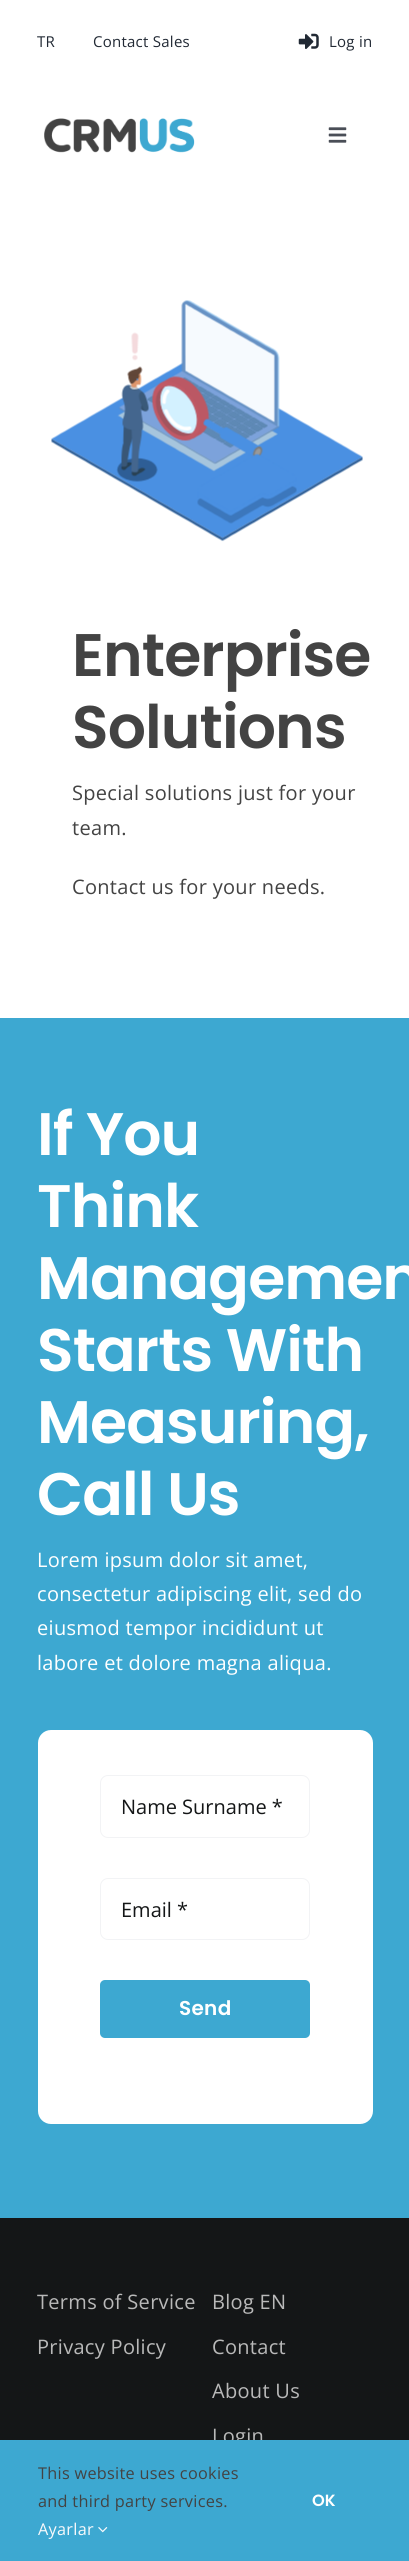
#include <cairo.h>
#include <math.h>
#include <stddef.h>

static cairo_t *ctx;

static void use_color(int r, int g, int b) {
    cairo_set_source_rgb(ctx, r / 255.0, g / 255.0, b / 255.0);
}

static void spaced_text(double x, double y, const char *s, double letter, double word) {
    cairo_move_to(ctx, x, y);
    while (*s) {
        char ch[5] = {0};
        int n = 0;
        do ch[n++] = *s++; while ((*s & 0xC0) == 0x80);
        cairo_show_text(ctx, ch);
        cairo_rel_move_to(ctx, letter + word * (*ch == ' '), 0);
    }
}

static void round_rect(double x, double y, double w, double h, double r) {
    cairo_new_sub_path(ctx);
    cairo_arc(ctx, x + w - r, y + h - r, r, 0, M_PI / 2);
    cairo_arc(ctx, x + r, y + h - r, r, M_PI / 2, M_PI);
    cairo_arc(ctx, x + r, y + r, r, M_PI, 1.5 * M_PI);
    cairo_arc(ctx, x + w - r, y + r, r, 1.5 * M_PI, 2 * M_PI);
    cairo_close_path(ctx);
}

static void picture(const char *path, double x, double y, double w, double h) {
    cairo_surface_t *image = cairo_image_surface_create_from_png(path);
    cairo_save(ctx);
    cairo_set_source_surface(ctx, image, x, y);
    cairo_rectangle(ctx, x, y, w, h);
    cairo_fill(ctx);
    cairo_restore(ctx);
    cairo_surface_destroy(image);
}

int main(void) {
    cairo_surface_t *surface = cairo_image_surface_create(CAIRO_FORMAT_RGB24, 409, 2561);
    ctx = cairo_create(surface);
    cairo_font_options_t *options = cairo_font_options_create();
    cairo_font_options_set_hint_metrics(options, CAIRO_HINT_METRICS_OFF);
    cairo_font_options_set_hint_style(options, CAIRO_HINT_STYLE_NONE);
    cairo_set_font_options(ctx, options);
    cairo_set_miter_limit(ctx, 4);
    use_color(255, 255, 255);
    cairo_paint(ctx);
    cairo_select_font_face(ctx, "Open Sans", CAIRO_FONT_SLANT_NORMAL, CAIRO_FONT_WEIGHT_NORMAL);
    cairo_set_font_size(ctx, 15);
    use_color(33, 41, 52);
    spaced_text(37, 47, "TR", 0.25, 0);
    spaced_text(93, 47, "Contact Sales", 0.25, 0);
    picture("img1.png", 298, 33, 21, 16);
    spaced_text(329, 47, "Log in", 0.25, 0);
    picture("img2.png", 44, 118, 151, 35);
    picture("img3.png", 328, 127, 19, 16);
    picture("img4.png", 51, 300, 312, 242);
    cairo_select_font_face(ctx, "Poppins SemiBold", CAIRO_FONT_SLANT_NORMAL, CAIRO_FONT_WEIGHT_NORMAL);
    cairo_set_font_size(ctx, 60);
    use_color(67, 67, 67);
    spaced_text(72, 676, "Enterprise", -0.9, 0);
    spaced_text(72, 748, "Solutions", -0.9, 0);
    cairo_select_font_face(ctx, "Open Sans", CAIRO_FONT_SLANT_NORMAL, CAIRO_FONT_WEIGHT_NORMAL);
    cairo_set_font_size(ctx, 20);
    spaced_text(72, 800, "Special solutions just for your", 0.3, 0);
    spaced_text(72, 835, "team.", 0.3, 0);
    spaced_text(72, 894, "Contact us for your needs.", 0.3, 0);
    use_color(61, 168, 209);
    cairo_rectangle(ctx, 0, 1018, 409, 1200);
    cairo_fill(ctx);
    cairo_select_font_face(ctx, "Poppins SemiBold", CAIRO_FONT_SLANT_NORMAL, CAIRO_FONT_WEIGHT_NORMAL);
    cairo_set_font_size(ctx, 60);
    use_color(255, 255, 255);
    spaced_text(37, 1155, "If You", -0.9, 0);
    spaced_text(37, 1227, "Think", -0.9, 0);
    spaced_text(37, 1299, "Managemen", -0.9, 0);
    spaced_text(37, 1371, "Starts With", -0.9, 0);
    spaced_text(37, 1443, "Measuring,", -0.9, 0);
    spaced_text(37, 1515, "Call Us", -0.9, 0);
    cairo_select_font_face(ctx, "Open Sans", CAIRO_FONT_SLANT_NORMAL, CAIRO_FONT_WEIGHT_NORMAL);
    cairo_set_font_size(ctx, 20);
    spaced_text(37, 1567, "Lorem ipsum dolor sit amet,", 0.3, 0);
    spaced_text(37, 1601, "consectetur adipiscing elit, sed do", 0.3, 0);
    spaced_text(37, 1635, "eiusmod tempor incididunt ut", 0.3, 0);
    spaced_text(37, 1670, "labore et dolore magna aliqua.", 0.3, 0);
    round_rect(38, 1730, 335, 394, 13);
    cairo_fill(ctx);
    round_rect(100.5, 1775.5, 209, 62, 7.5);
    use_color(242, 243, 245);
    cairo_set_line_width(ctx, 1);
    cairo_stroke(ctx);
    use_color(20, 22, 23);
    cairo_move_to(ctx, 121, 1814);
    cairo_show_text(ctx, "Name Surname *");
    round_rect(100.5, 1878.5, 209, 61, 7.5);
    use_color(242, 243, 245);
    cairo_stroke(ctx);
    use_color(20, 22, 23);
    cairo_move_to(ctx, 121, 1917);
    cairo_show_text(ctx, "Email *");
    use_color(61, 168, 209);
    round_rect(100, 1980, 210, 58, 5);
    cairo_fill(ctx);
    cairo_select_font_face(ctx, "Poppins SemiBold", CAIRO_FONT_SLANT_NORMAL, CAIRO_FONT_WEIGHT_NORMAL);
    use_color(255, 255, 255);
    spaced_text(179, 2015, "Send", 0.3, 0);
    use_color(20, 22, 23);
    cairo_rectangle(ctx, 0, 2218, 409, 222);
    cairo_fill(ctx);
    cairo_select_font_face(ctx, "Open Sans", CAIRO_FONT_SLANT_NORMAL, CAIRO_FONT_WEIGHT_NORMAL);
    use_color(185, 185, 185);
    spaced_text(37, 2309, "Terms of Service", 0.3, 0);
    spaced_text(37, 2354, "Privacy Policy", 0.3, 0);
    spaced_text(212, 2309, "Blog EN", 0.3, 0);
    spaced_text(212, 2354, "Contact", 0.3, 0);
    spaced_text(212, 2398, "About Us", 0.3, 0);
    spaced_text(212, 2443, "Login", 0.3, 0);
    use_color(61, 168, 209);
    cairo_rectangle(ctx, 0, 2440, 409, 121);
    cairo_fill(ctx);
    cairo_set_font_size(ctx, 16.25);
    use_color(67, 67, 67);
    spaced_text(38, 2479, "This website uses cookies", 0.3, 0);
    spaced_text(38, 2507, "and third party services.", 0.3, 0);
    use_color(249, 249, 251);
    spaced_text(38, 2535, "Ayarlar", 0.3, 0);
    picture("img5.png", 98, 2527, 10, 6);
    cairo_select_font_face(ctx, "Poppins SemiBold", CAIRO_FONT_SLANT_NORMAL, CAIRO_FONT_WEIGHT_NORMAL);
    use_color(255, 255, 255);
    cairo_move_to(ctx, 312, 2506);
    cairo_show_text(ctx, "OK");
    cairo_surface_write_to_png(surface, "result.png");
    cairo_font_options_destroy(options);
    cairo_destroy(ctx);
    cairo_surface_destroy(surface);
    return 0;
}
